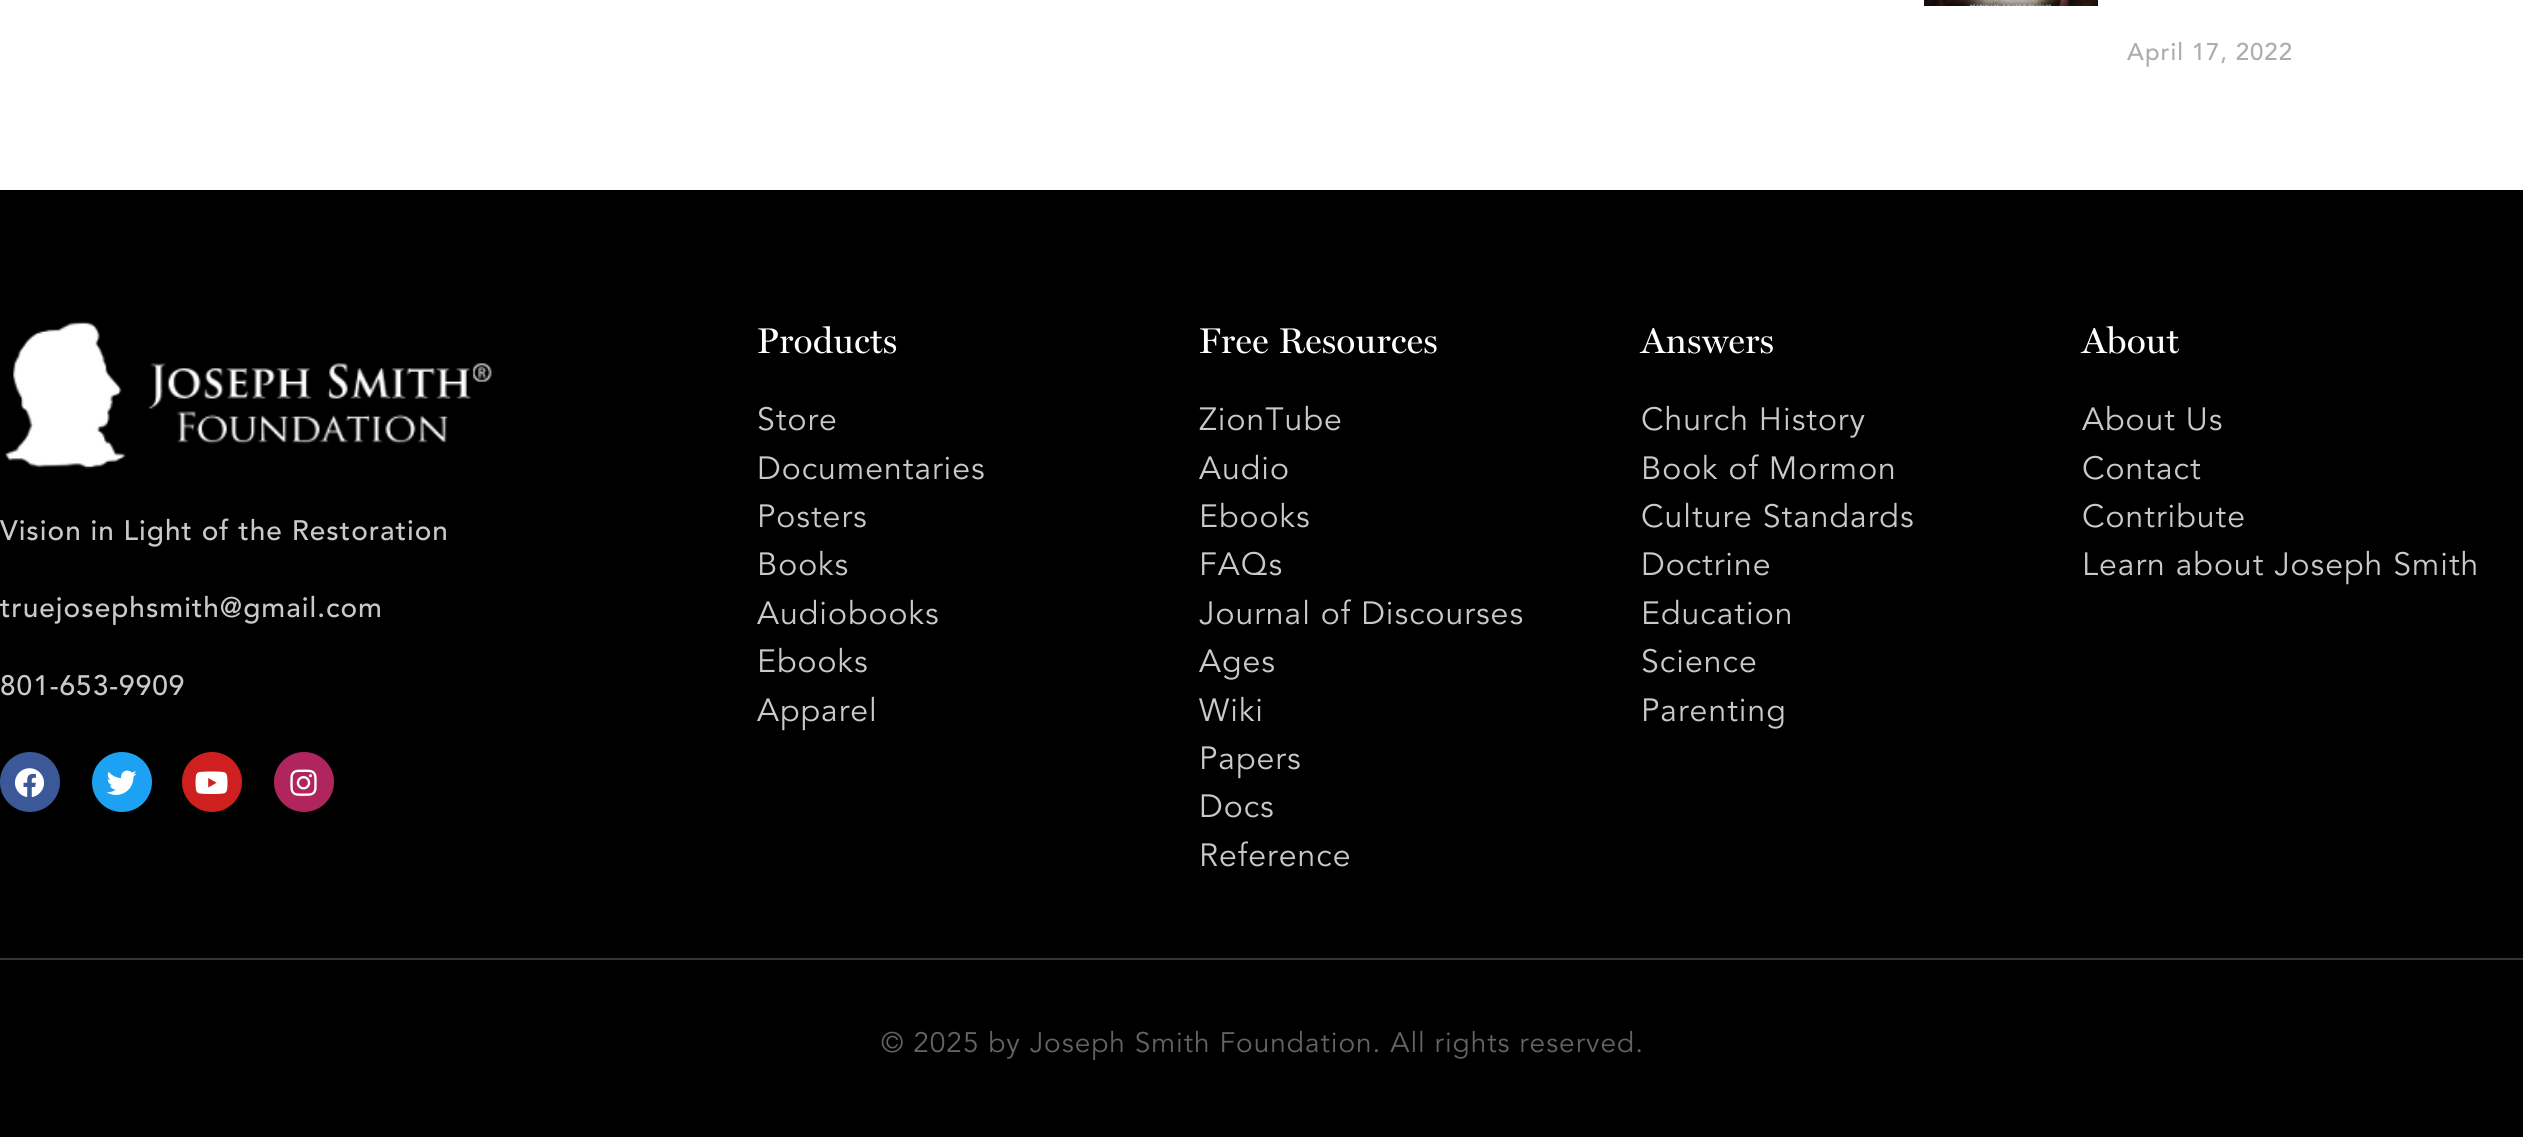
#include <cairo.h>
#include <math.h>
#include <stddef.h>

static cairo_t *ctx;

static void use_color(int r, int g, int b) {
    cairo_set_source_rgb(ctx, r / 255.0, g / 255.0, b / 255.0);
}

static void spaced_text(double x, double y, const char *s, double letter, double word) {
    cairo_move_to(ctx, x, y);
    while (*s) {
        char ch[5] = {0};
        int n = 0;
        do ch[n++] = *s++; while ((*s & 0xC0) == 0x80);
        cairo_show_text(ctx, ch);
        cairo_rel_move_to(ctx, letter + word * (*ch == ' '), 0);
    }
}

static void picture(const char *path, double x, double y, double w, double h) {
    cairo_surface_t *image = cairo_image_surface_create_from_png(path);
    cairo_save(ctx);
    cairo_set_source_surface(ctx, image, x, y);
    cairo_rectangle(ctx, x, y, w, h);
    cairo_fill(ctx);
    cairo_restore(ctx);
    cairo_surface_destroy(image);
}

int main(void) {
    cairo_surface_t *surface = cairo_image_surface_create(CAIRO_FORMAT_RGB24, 2523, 1137);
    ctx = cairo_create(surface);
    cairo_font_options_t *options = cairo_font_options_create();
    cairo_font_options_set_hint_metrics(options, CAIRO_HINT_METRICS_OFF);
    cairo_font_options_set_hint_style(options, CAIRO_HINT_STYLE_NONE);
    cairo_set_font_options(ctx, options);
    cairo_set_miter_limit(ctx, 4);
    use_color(255, 255, 255);
    cairo_paint(ctx);
    picture("img1.png", 1924, 0, 174, 6);
    cairo_select_font_face(ctx, "Avenir Medium", CAIRO_FONT_SLANT_NORMAL, CAIRO_FONT_WEIGHT_NORMAL);
    cairo_set_font_size(ctx, 24);
    use_color(173, 173, 173);
    spaced_text(2127, 60, "April 17, 2022", 1, 0);
    use_color(0, 0, 0);
    cairo_rectangle(ctx, 0, 190, 2523, 947);
    cairo_fill(ctx);
    picture("img2.png", 4, 321, 488, 148);
    cairo_set_font_size(ctx, 28);
    use_color(201, 201, 201);
    spaced_text(0, 540, "Vision in Light of the Restoration", 1, 0);
    spaced_text(0, 617, "truejosephsmith@gmail.com", 1, 0);
    spaced_text(0, 695, "801-653-9909", 1, 0);
    use_color(59, 89, 152);
    cairo_new_path(ctx);
    cairo_arc(ctx, 30, 782, 30, 0, 2 * M_PI);
    cairo_fill(ctx);
    picture("img3.png", 15, 768, 29, 29);
    use_color(29, 161, 242);
    cairo_arc(ctx, 122, 782, 30, 0, 2 * M_PI);
    cairo_fill(ctx);
    picture("img4.png", 106, 770, 31, 25);
    use_color(205, 32, 31);
    cairo_arc(ctx, 212, 782, 30, 0, 2 * M_PI);
    cairo_fill(ctx);
    picture("img5.png", 195, 771, 33, 23);
    use_color(177, 37, 94);
    cairo_arc(ctx, 304, 782, 30, 0, 2 * M_PI);
    cairo_fill(ctx);
    picture("img6.png", 290, 769, 27, 27);
    cairo_select_font_face(ctx, "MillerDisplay", CAIRO_FONT_SLANT_NORMAL, CAIRO_FONT_WEIGHT_NORMAL);
    cairo_set_font_size(ctx, 36);
    use_color(255, 255, 255);
    spaced_text(757, 353, "Products", 1, 0);
    cairo_select_font_face(ctx, "Avenir", CAIRO_FONT_SLANT_NORMAL, CAIRO_FONT_WEIGHT_NORMAL);
    cairo_set_font_size(ctx, 32);
    use_color(201, 201, 201);
    spaced_text(757, 430, "Store", 1, 0);
    spaced_text(757, 479, "Documentaries", 1, 0);
    spaced_text(757, 527, "Posters", 1, 0);
    spaced_text(757, 575, "Books", 1, 0);
    spaced_text(757, 624, "Audiobooks", 1, 0);
    spaced_text(757, 672, "Ebooks", 1, 0);
    spaced_text(757, 721, "Apparel", 1, 0);
    cairo_select_font_face(ctx, "MillerDisplay", CAIRO_FONT_SLANT_NORMAL, CAIRO_FONT_WEIGHT_NORMAL);
    cairo_set_font_size(ctx, 36);
    use_color(255, 255, 255);
    spaced_text(1199, 353, "Free Resources", 1, 0);
    cairo_select_font_face(ctx, "Avenir", CAIRO_FONT_SLANT_NORMAL, CAIRO_FONT_WEIGHT_NORMAL);
    cairo_set_font_size(ctx, 32);
    use_color(201, 201, 201);
    spaced_text(1199, 430, "ZionTube", 1, 0);
    spaced_text(1199, 479, "Audio", 1, 0);
    spaced_text(1199, 527, "Ebooks", 1, 0);
    spaced_text(1199, 575, "FAQs", 1, 0);
    spaced_text(1199, 624, "Journal of Discourses", 1, 0);
    spaced_text(1199, 672, "Ages", 1, 0);
    spaced_text(1199, 721, "Wiki", 1, 0);
    spaced_text(1199, 769, "Papers", 1, 0);
    spaced_text(1199, 817, "Docs", 1, 0);
    spaced_text(1199, 866, "Reference", 1, 0);
    cairo_select_font_face(ctx, "MillerDisplay", CAIRO_FONT_SLANT_NORMAL, CAIRO_FONT_WEIGHT_NORMAL);
    cairo_set_font_size(ctx, 36);
    use_color(255, 255, 255);
    spaced_text(1641, 353, "Answers", 1, 0);
    cairo_select_font_face(ctx, "Avenir", CAIRO_FONT_SLANT_NORMAL, CAIRO_FONT_WEIGHT_NORMAL);
    cairo_set_font_size(ctx, 32);
    use_color(201, 201, 201);
    spaced_text(1641, 430, "Church History", 1, 0);
    spaced_text(1641, 479, "Book of Mormon", 1, 0);
    spaced_text(1641, 527, "Culture Standards", 1, 0);
    spaced_text(1641, 575, "Doctrine", 1, 0);
    spaced_text(1641, 624, "Education", 1, 0);
    spaced_text(1641, 672, "Science", 1, 0);
    spaced_text(1641, 721, "Parenting", 1, 0);
    cairo_select_font_face(ctx, "MillerDisplay", CAIRO_FONT_SLANT_NORMAL, CAIRO_FONT_WEIGHT_NORMAL);
    cairo_set_font_size(ctx, 36);
    use_color(255, 255, 255);
    spaced_text(2082, 353, "About", 1, 0);
    cairo_select_font_face(ctx, "Avenir", CAIRO_FONT_SLANT_NORMAL, CAIRO_FONT_WEIGHT_NORMAL);
    cairo_set_font_size(ctx, 32);
    use_color(201, 201, 201);
    spaced_text(2082, 430, "About Us", 1, 0);
    spaced_text(2082, 479, "Contact", 1, 0);
    spaced_text(2082, 527, "Contribute", 1, 0);
    spaced_text(2082, 575, "Learn about Joseph Smith", 1, 0);
    use_color(54, 54, 54);
    cairo_rectangle(ctx, 0, 958, 2523, 2);
    cairo_fill(ctx);
    cairo_set_font_size(ctx, 28);
    use_color(99, 99, 99);
    spaced_text(881, 1052, "© 2025 by Joseph Smith Foundation. All rights reserved.", 1, 0);
    cairo_surface_write_to_png(surface, "result.png");
    cairo_font_options_destroy(options);
    cairo_destroy(ctx);
    cairo_surface_destroy(surface);
    return 0;
}
